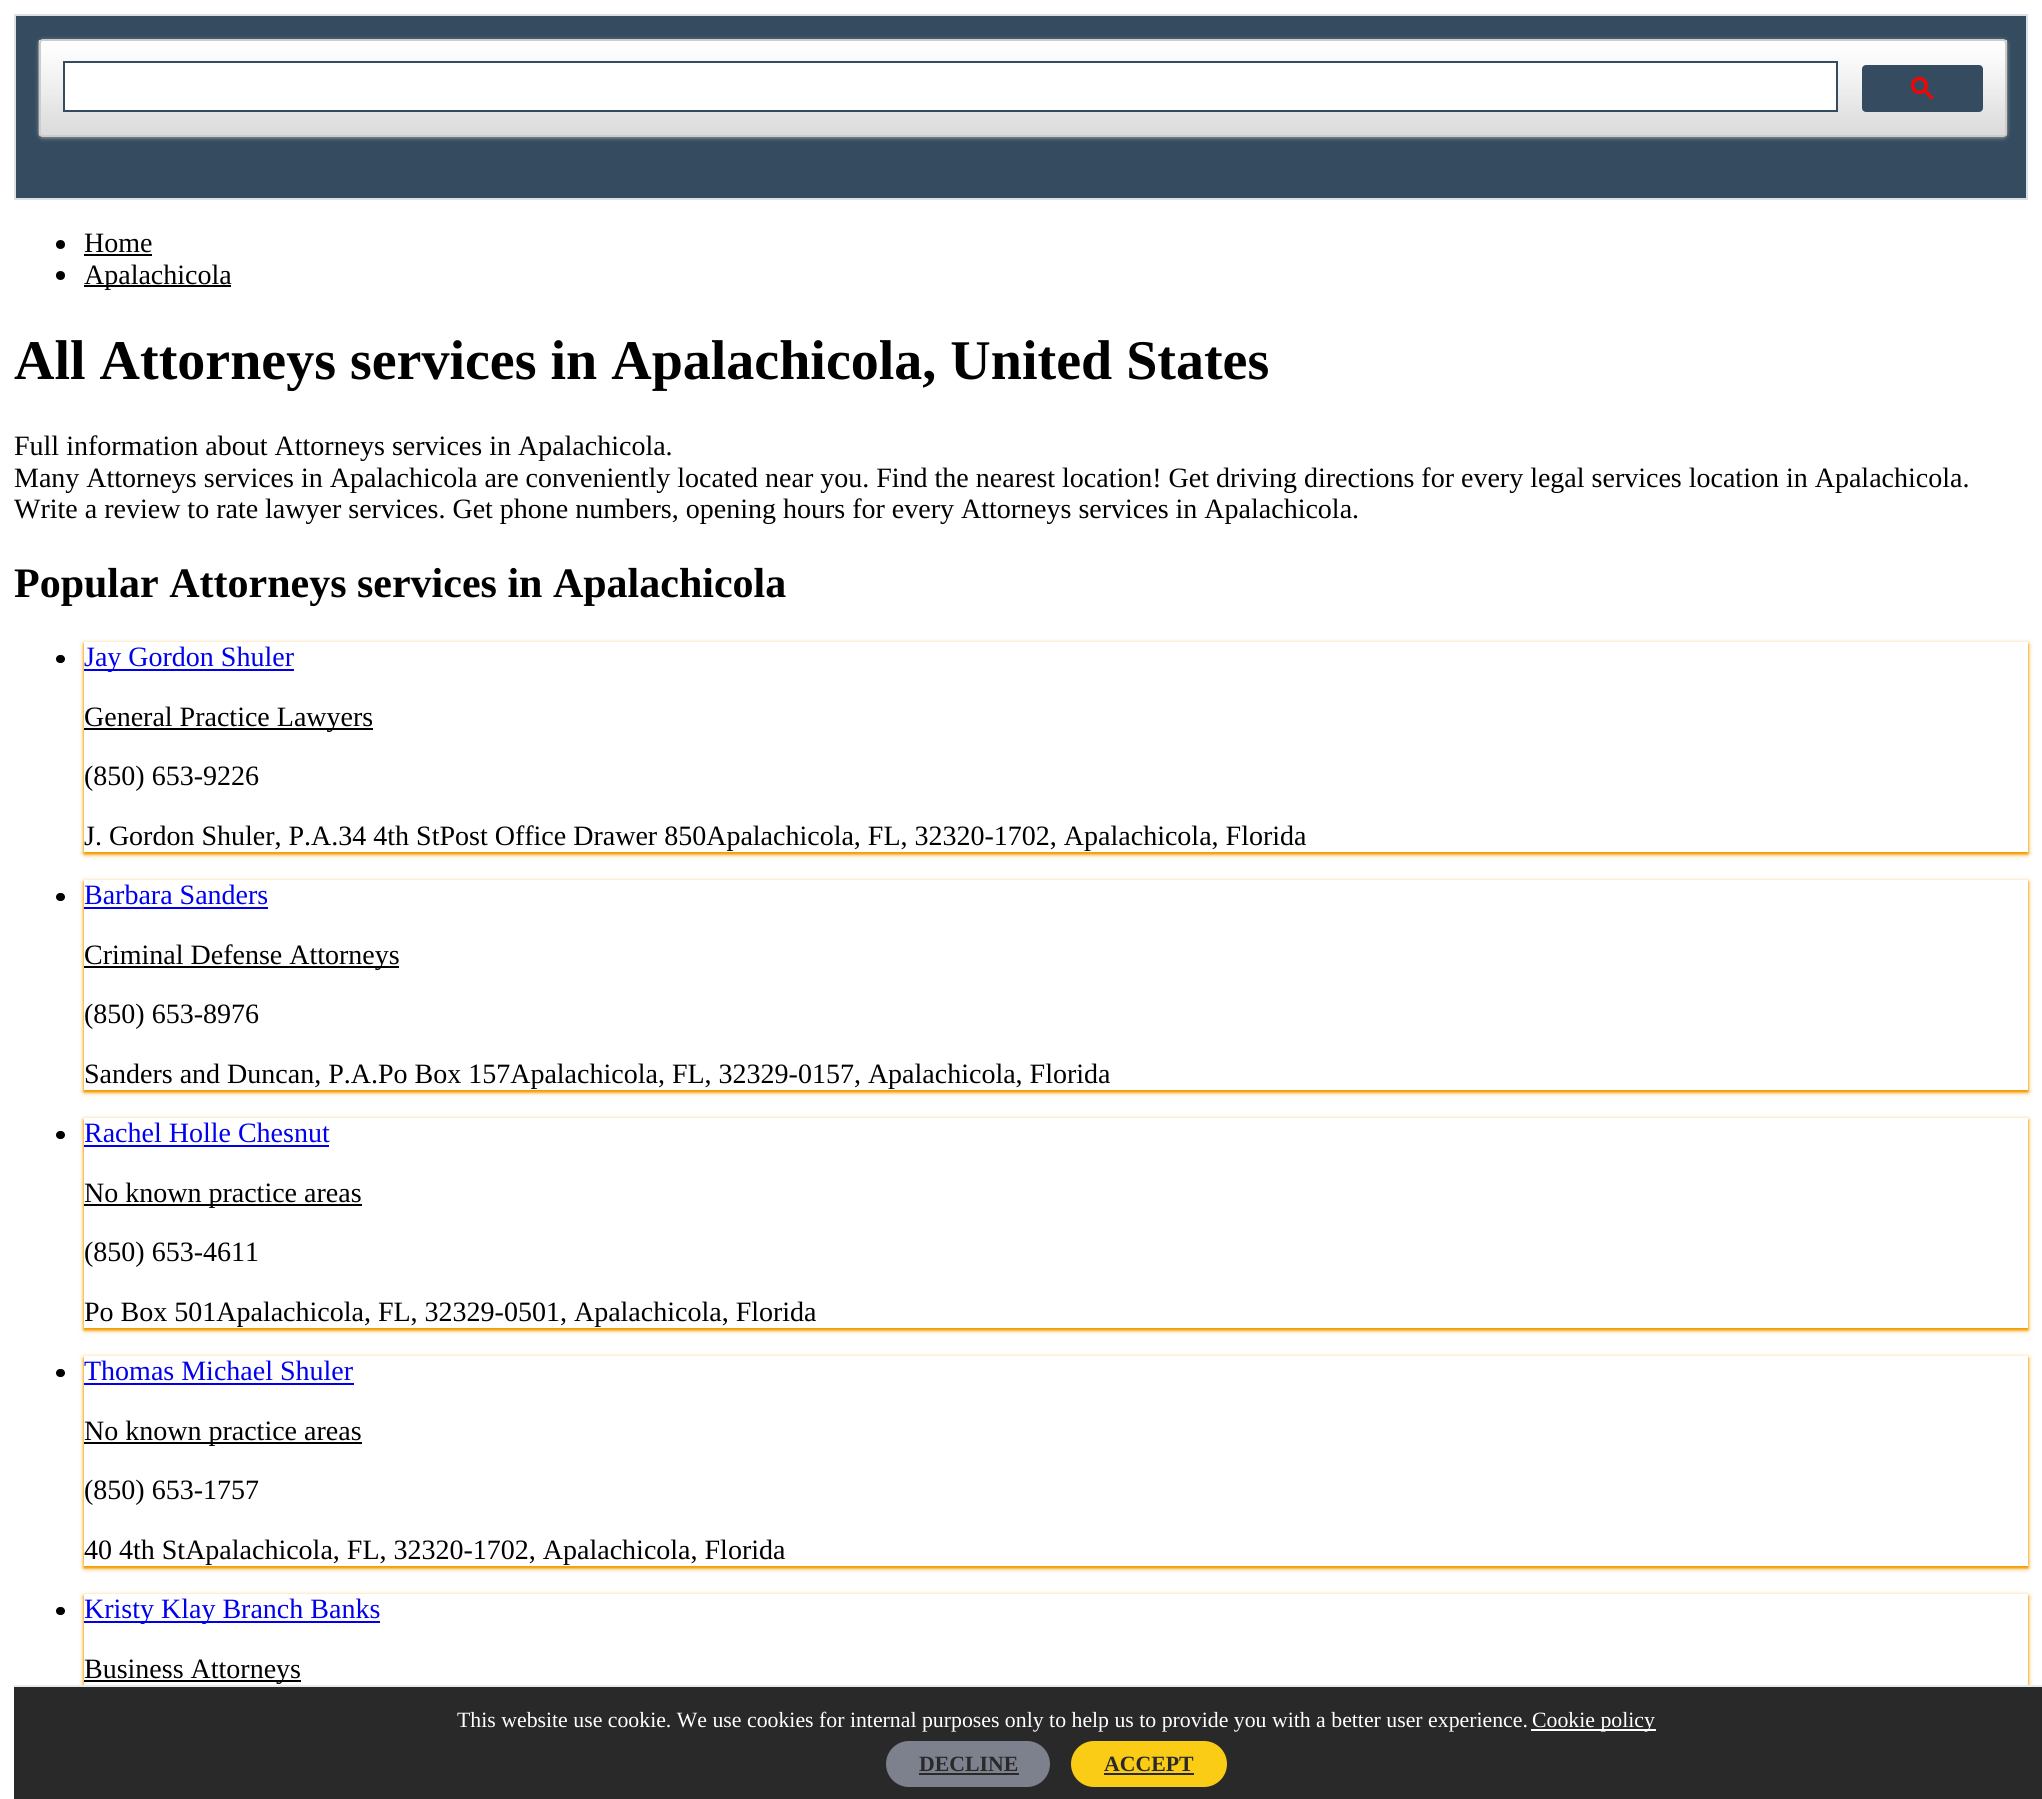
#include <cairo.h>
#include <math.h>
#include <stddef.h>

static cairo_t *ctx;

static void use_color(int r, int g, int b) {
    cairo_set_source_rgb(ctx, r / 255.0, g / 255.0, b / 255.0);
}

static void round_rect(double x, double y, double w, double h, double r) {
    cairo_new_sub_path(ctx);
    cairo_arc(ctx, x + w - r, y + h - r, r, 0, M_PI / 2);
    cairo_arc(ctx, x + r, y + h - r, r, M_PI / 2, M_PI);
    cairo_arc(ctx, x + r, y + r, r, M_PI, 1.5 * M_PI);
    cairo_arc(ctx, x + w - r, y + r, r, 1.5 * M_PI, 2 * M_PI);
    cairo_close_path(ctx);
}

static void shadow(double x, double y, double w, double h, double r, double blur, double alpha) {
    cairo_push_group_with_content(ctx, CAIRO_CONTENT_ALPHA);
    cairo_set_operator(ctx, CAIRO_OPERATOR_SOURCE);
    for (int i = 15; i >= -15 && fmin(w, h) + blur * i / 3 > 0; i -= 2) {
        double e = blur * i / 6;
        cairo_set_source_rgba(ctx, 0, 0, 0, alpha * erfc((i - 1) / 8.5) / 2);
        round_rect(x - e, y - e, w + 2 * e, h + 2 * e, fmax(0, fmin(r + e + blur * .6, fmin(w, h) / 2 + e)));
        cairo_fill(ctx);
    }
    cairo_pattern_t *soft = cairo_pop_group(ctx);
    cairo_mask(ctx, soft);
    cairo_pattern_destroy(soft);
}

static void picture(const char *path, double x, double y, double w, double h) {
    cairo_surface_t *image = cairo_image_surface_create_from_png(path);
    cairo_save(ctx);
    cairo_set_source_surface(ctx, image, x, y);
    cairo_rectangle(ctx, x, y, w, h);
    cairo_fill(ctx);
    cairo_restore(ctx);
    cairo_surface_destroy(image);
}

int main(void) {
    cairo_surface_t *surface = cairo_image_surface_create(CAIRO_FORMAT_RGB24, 2042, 1799);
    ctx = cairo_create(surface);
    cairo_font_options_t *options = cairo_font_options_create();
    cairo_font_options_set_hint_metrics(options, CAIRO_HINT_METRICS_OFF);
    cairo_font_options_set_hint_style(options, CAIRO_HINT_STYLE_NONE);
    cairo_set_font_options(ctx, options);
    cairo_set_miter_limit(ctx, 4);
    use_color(255, 255, 255);
    cairo_paint(ctx);
    use_color(53, 76, 96);
    cairo_rectangle(ctx, 15, 15, 2012, 184);
    cairo_fill_preserve(ctx);
    use_color(218, 224, 229);
    cairo_stroke(ctx);
    use_color(153, 153, 153);
    shadow(39, 40, 1968, 98, 4, 2, 1);
    picture("img1.png", 38, 40, 1970, 97);
    round_rect(40, 40, 1966, 96, 3);
    use_color(204, 204, 204);
    cairo_stroke(ctx);
    use_color(255, 255, 255);
    cairo_rectangle(ctx, 64, 62, 1773, 49);
    cairo_fill_preserve(ctx);
    use_color(53, 76, 96);
    cairo_stroke(ctx);
    round_rect(1863, 66, 119, 45, 3);
    cairo_fill_preserve(ctx);
    cairo_stroke(ctx);
    picture("img2.png", 1911, 77, 23, 23);
    use_color(0, 0, 0);
    cairo_arc(ctx, 60.5, 244.5, 4.5, 0, 2 * M_PI);
    cairo_fill(ctx);
    cairo_select_font_face(ctx, "Liberation Serif", CAIRO_FONT_SLANT_NORMAL, CAIRO_FONT_WEIGHT_NORMAL);
    cairo_set_font_size(ctx, 28);
    cairo_move_to(ctx, 84, 252);
    cairo_show_text(ctx, "Home");
    cairo_rectangle(ctx, 84, 254, 68, 2);
    cairo_fill(ctx);
    cairo_arc(ctx, 60.5, 275.5, 4.5, 0, 2 * M_PI);
    cairo_fill(ctx);
    cairo_rectangle(ctx, 84, 285, 147, 2);
    cairo_fill(ctx);
    cairo_move_to(ctx, 84, 284);
    cairo_show_text(ctx, "Apalachicola");
    cairo_select_font_face(ctx, "Liberation Serif", CAIRO_FONT_SLANT_NORMAL, CAIRO_FONT_WEIGHT_BOLD);
    cairo_set_font_size(ctx, 56);
    cairo_move_to(ctx, 14, 379);
    cairo_show_text(ctx, "All Attorneys services in Apalachicola, United States");
    cairo_select_font_face(ctx, "Liberation Serif", CAIRO_FONT_SLANT_NORMAL, CAIRO_FONT_WEIGHT_NORMAL);
    cairo_set_font_size(ctx, 28);
    cairo_move_to(ctx, 14, 455);
    cairo_show_text(ctx, "Full information about Attorneys services in Apalachicola.");
    cairo_move_to(ctx, 14, 487);
    cairo_show_text(ctx, "Many Attorneys services in Apalachicola are conveniently located near you. Find the nearest location! Get driving directions for every legal services location in Apalachicola.");
    cairo_move_to(ctx, 14, 518);
    cairo_show_text(ctx, "Write a review to rate lawyer services. Get phone numbers, opening hours for every Attorneys services in Apalachicola.");
    cairo_select_font_face(ctx, "Liberation Serif", CAIRO_FONT_SLANT_NORMAL, CAIRO_FONT_WEIGHT_BOLD);
    cairo_set_font_size(ctx, 42);
    cairo_move_to(ctx, 14, 597);
    cairo_show_text(ctx, "Popular Attorneys services in Apalachicola");
    round_rect(56, 655, 9, 8, 4);
    cairo_fill(ctx);
    cairo_save(ctx);
    cairo_set_fill_rule(ctx, CAIRO_FILL_RULE_EVEN_ODD);
    cairo_new_path(ctx);
    cairo_move_to(ctx, 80, 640);
    cairo_line_to(ctx, 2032, 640);
    cairo_line_to(ctx, 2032, 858);
    cairo_line_to(ctx, 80, 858);
    cairo_close_path(ctx);
    cairo_move_to(ctx, 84, 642);
    cairo_line_to(ctx, 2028, 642);
    cairo_line_to(ctx, 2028, 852);
    cairo_line_to(ctx, 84, 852);
    cairo_close_path(ctx);
    cairo_clip(ctx);
    use_color(244, 155, 1);
    shadow(84, 644, 1944, 210, 0, 1, 1);
    cairo_restore(ctx);
    cairo_save(ctx);
    cairo_set_fill_rule(ctx, CAIRO_FILL_RULE_EVEN_ODD);
    cairo_new_path(ctx);
    cairo_move_to(ctx, 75, 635);
    cairo_line_to(ctx, 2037, 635);
    cairo_line_to(ctx, 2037, 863);
    cairo_line_to(ctx, 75, 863);
    cairo_close_path(ctx);
    cairo_move_to(ctx, 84, 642);
    cairo_line_to(ctx, 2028, 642);
    cairo_line_to(ctx, 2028, 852);
    cairo_line_to(ctx, 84, 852);
    cairo_close_path(ctx);
    cairo_clip(ctx);
    use_color(244, 155, 1);
    shadow(84, 644, 1944, 210, 0, 2.5, 1);
    cairo_restore(ctx);
    use_color(0, 0, 238);
    cairo_rectangle(ctx, 84, 669, 210, 2);
    cairo_fill(ctx);
    cairo_select_font_face(ctx, "Liberation Serif", CAIRO_FONT_SLANT_NORMAL, CAIRO_FONT_WEIGHT_NORMAL);
    cairo_set_font_size(ctx, 28);
    cairo_move_to(ctx, 84, 666);
    cairo_show_text(ctx, "Jay Gordon Shuler");
    use_color(0, 0, 0);
    cairo_rectangle(ctx, 84, 728, 289, 2);
    cairo_fill(ctx);
    cairo_move_to(ctx, 84, 726);
    cairo_show_text(ctx, "General Practice Lawyers");
    cairo_move_to(ctx, 84, 785);
    cairo_show_text(ctx, "(850) 653-9226");
    cairo_move_to(ctx, 84, 845);
    cairo_show_text(ctx, "J. Gordon Shuler, P.A.34 4th StPost Office Drawer 850Apalachicola, FL, 32320-1702, Apalachicola, Florida");
    round_rect(56, 893, 9, 8, 4);
    cairo_fill(ctx);
    cairo_save(ctx);
    cairo_set_fill_rule(ctx, CAIRO_FILL_RULE_EVEN_ODD);
    cairo_new_path(ctx);
    cairo_move_to(ctx, 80, 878);
    cairo_line_to(ctx, 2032, 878);
    cairo_line_to(ctx, 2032, 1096);
    cairo_line_to(ctx, 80, 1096);
    cairo_close_path(ctx);
    cairo_move_to(ctx, 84, 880);
    cairo_line_to(ctx, 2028, 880);
    cairo_line_to(ctx, 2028, 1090);
    cairo_line_to(ctx, 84, 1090);
    cairo_close_path(ctx);
    cairo_clip(ctx);
    use_color(244, 155, 1);
    shadow(84, 882, 1944, 210, 0, 1, 1);
    cairo_restore(ctx);
    cairo_save(ctx);
    cairo_set_fill_rule(ctx, CAIRO_FILL_RULE_EVEN_ODD);
    cairo_new_path(ctx);
    cairo_move_to(ctx, 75, 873);
    cairo_line_to(ctx, 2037, 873);
    cairo_line_to(ctx, 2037, 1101);
    cairo_line_to(ctx, 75, 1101);
    cairo_close_path(ctx);
    cairo_move_to(ctx, 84, 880);
    cairo_line_to(ctx, 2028, 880);
    cairo_line_to(ctx, 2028, 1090);
    cairo_line_to(ctx, 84, 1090);
    cairo_close_path(ctx);
    cairo_clip(ctx);
    use_color(244, 155, 1);
    shadow(84, 882, 1944, 210, 0, 2.5, 1);
    cairo_restore(ctx);
    use_color(0, 0, 238);
    cairo_move_to(ctx, 84, 904);
    cairo_show_text(ctx, "Barbara Sanders");
    cairo_rectangle(ctx, 84, 907, 184, 2);
    cairo_fill(ctx);
    use_color(0, 0, 0);
    cairo_rectangle(ctx, 84, 966, 315, 2);
    cairo_fill(ctx);
    cairo_move_to(ctx, 84, 964);
    cairo_show_text(ctx, "Criminal Defense Attorneys");
    cairo_move_to(ctx, 84, 1023);
    cairo_show_text(ctx, "(850) 653-8976");
    cairo_move_to(ctx, 84, 1083);
    cairo_show_text(ctx, "Sanders and Duncan, P.A.Po Box 157Apalachicola, FL, 32329-0157, Apalachicola, Florida");
    round_rect(56, 1131, 9, 8, 4);
    cairo_fill(ctx);
    cairo_save(ctx);
    cairo_set_fill_rule(ctx, CAIRO_FILL_RULE_EVEN_ODD);
    cairo_new_path(ctx);
    cairo_move_to(ctx, 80, 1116);
    cairo_line_to(ctx, 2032, 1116);
    cairo_line_to(ctx, 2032, 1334);
    cairo_line_to(ctx, 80, 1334);
    cairo_close_path(ctx);
    cairo_move_to(ctx, 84, 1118);
    cairo_line_to(ctx, 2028, 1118);
    cairo_line_to(ctx, 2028, 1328);
    cairo_line_to(ctx, 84, 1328);
    cairo_close_path(ctx);
    cairo_clip(ctx);
    use_color(244, 155, 1);
    shadow(84, 1120, 1944, 210, 0, 1, 1);
    cairo_restore(ctx);
    cairo_save(ctx);
    cairo_set_fill_rule(ctx, CAIRO_FILL_RULE_EVEN_ODD);
    cairo_new_path(ctx);
    cairo_move_to(ctx, 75, 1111);
    cairo_line_to(ctx, 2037, 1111);
    cairo_line_to(ctx, 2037, 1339);
    cairo_line_to(ctx, 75, 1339);
    cairo_close_path(ctx);
    cairo_move_to(ctx, 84, 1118);
    cairo_line_to(ctx, 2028, 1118);
    cairo_line_to(ctx, 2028, 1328);
    cairo_line_to(ctx, 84, 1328);
    cairo_close_path(ctx);
    cairo_clip(ctx);
    use_color(244, 155, 1);
    shadow(84, 1120, 1944, 210, 0, 2.5, 1);
    cairo_restore(ctx);
    use_color(0, 0, 238);
    cairo_move_to(ctx, 84, 1142);
    cairo_show_text(ctx, "Rachel Holle Chesnut");
    cairo_rectangle(ctx, 84, 1145, 245, 2);
    cairo_fill(ctx);
    use_color(0, 0, 0);
    cairo_rectangle(ctx, 84, 1204, 278, 2);
    cairo_fill(ctx);
    cairo_move_to(ctx, 84, 1202);
    cairo_show_text(ctx, "No known practice areas");
    cairo_move_to(ctx, 84, 1261);
    cairo_show_text(ctx, "(850) 653-4611");
    cairo_move_to(ctx, 84, 1321);
    cairo_show_text(ctx, "Po Box 501Apalachicola, FL, 32329-0501, Apalachicola, Florida");
    round_rect(56, 1369, 9, 8, 4);
    cairo_fill(ctx);
    cairo_save(ctx);
    cairo_set_fill_rule(ctx, CAIRO_FILL_RULE_EVEN_ODD);
    cairo_new_path(ctx);
    cairo_move_to(ctx, 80, 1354);
    cairo_line_to(ctx, 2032, 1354);
    cairo_line_to(ctx, 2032, 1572);
    cairo_line_to(ctx, 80, 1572);
    cairo_close_path(ctx);
    cairo_move_to(ctx, 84, 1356);
    cairo_line_to(ctx, 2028, 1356);
    cairo_line_to(ctx, 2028, 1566);
    cairo_line_to(ctx, 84, 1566);
    cairo_close_path(ctx);
    cairo_clip(ctx);
    use_color(244, 155, 1);
    shadow(84, 1358, 1944, 210, 0, 1, 1);
    cairo_restore(ctx);
    cairo_save(ctx);
    cairo_set_fill_rule(ctx, CAIRO_FILL_RULE_EVEN_ODD);
    cairo_new_path(ctx);
    cairo_move_to(ctx, 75, 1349);
    cairo_line_to(ctx, 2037, 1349);
    cairo_line_to(ctx, 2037, 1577);
    cairo_line_to(ctx, 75, 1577);
    cairo_close_path(ctx);
    cairo_move_to(ctx, 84, 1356);
    cairo_line_to(ctx, 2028, 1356);
    cairo_line_to(ctx, 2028, 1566);
    cairo_line_to(ctx, 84, 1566);
    cairo_close_path(ctx);
    cairo_clip(ctx);
    use_color(244, 155, 1);
    shadow(84, 1358, 1944, 210, 0, 2.5, 1);
    cairo_restore(ctx);
    use_color(0, 0, 238);
    cairo_move_to(ctx, 84, 1380);
    cairo_show_text(ctx, "Thomas Michael Shuler");
    cairo_rectangle(ctx, 84, 1383, 270, 2);
    cairo_fill(ctx);
    use_color(0, 0, 0);
    cairo_rectangle(ctx, 84, 1442, 278, 2);
    cairo_fill(ctx);
    cairo_move_to(ctx, 84, 1440);
    cairo_show_text(ctx, "No known practice areas");
    cairo_move_to(ctx, 84, 1499);
    cairo_show_text(ctx, "(850) 653-1757");
    cairo_move_to(ctx, 84, 1559);
    cairo_show_text(ctx, "40 4th StApalachicola, FL, 32320-1702, Apalachicola, Florida");
    round_rect(56, 1607, 9, 8, 4);
    cairo_fill(ctx);
    cairo_save(ctx);
    cairo_set_fill_rule(ctx, CAIRO_FILL_RULE_EVEN_ODD);
    cairo_new_path(ctx);
    cairo_move_to(ctx, 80, 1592);
    cairo_line_to(ctx, 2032, 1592);
    cairo_line_to(ctx, 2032, 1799);
    cairo_line_to(ctx, 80, 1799);
    cairo_close_path(ctx);
    cairo_move_to(ctx, 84, 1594);
    cairo_line_to(ctx, 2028, 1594);
    cairo_line_to(ctx, 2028, 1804);
    cairo_line_to(ctx, 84, 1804);
    cairo_close_path(ctx);
    cairo_clip(ctx);
    use_color(244, 155, 1);
    shadow(84, 1596, 1944, 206, 0, 1, 1);
    cairo_restore(ctx);
    cairo_save(ctx);
    cairo_set_fill_rule(ctx, CAIRO_FILL_RULE_EVEN_ODD);
    cairo_new_path(ctx);
    cairo_move_to(ctx, 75, 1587);
    cairo_line_to(ctx, 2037, 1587);
    cairo_line_to(ctx, 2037, 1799);
    cairo_line_to(ctx, 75, 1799);
    cairo_close_path(ctx);
    cairo_move_to(ctx, 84, 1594);
    cairo_line_to(ctx, 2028, 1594);
    cairo_line_to(ctx, 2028, 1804);
    cairo_line_to(ctx, 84, 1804);
    cairo_close_path(ctx);
    cairo_clip(ctx);
    use_color(244, 155, 1);
    shadow(84, 1596, 1944, 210, 0, 2.5, 1);
    cairo_restore(ctx);
    use_color(0, 0, 238);
    cairo_rectangle(ctx, 84, 1621, 296, 2);
    cairo_fill(ctx);
    cairo_move_to(ctx, 84, 1618);
    cairo_show_text(ctx, "Kristy Klay Branch Banks");
    use_color(0, 0, 0);
    cairo_rectangle(ctx, 84, 1680, 217, 2);
    cairo_fill(ctx);
    cairo_move_to(ctx, 84, 1678);
    cairo_show_text(ctx, "Business Attorneys");
    use_color(41, 41, 41);
    cairo_rectangle(ctx, 14, 1687, 2028, 112);
    cairo_fill(ctx);
    use_color(232, 234, 235);
    cairo_rectangle(ctx, 14, 1685, 2028, 2);
    cairo_fill(ctx);
    cairo_set_font_size(ctx, 21.8);
    use_color(255, 255, 255);
    cairo_move_to(ctx, 457, 1727);
    cairo_show_text(ctx, "This website use cookie. We use cookies for internal purposes only to help us to provide you with a better user experience.");
    cairo_rectangle(ctx, 1531, 1729, 125, 2);
    cairo_fill(ctx);
    cairo_move_to(ctx, 1532, 1727);
    cairo_show_text(ctx, "Cookie policy");
    use_color(125, 129, 142);
    round_rect(886, 1741, 164, 46, 23);
    cairo_fill(ctx);
    cairo_select_font_face(ctx, "Liberation Serif", CAIRO_FONT_SLANT_NORMAL, CAIRO_FONT_WEIGHT_BOLD);
    use_color(41, 41, 41);
    cairo_move_to(ctx, 919, 1771);
    cairo_show_text(ctx, "DECLINE");
    cairo_rectangle(ctx, 919, 1773, 100, 2);
    cairo_fill(ctx);
    use_color(250, 204, 22);
    round_rect(1071, 1741, 156, 46, 23);
    cairo_fill(ctx);
    use_color(41, 41, 41);
    cairo_move_to(ctx, 1104, 1771);
    cairo_show_text(ctx, "ACCEPT");
    cairo_rectangle(ctx, 1104, 1773, 90, 2);
    cairo_fill(ctx);
    cairo_surface_write_to_png(surface, "result.png");
    cairo_font_options_destroy(options);
    cairo_destroy(ctx);
    cairo_surface_destroy(surface);
    return 0;
}
